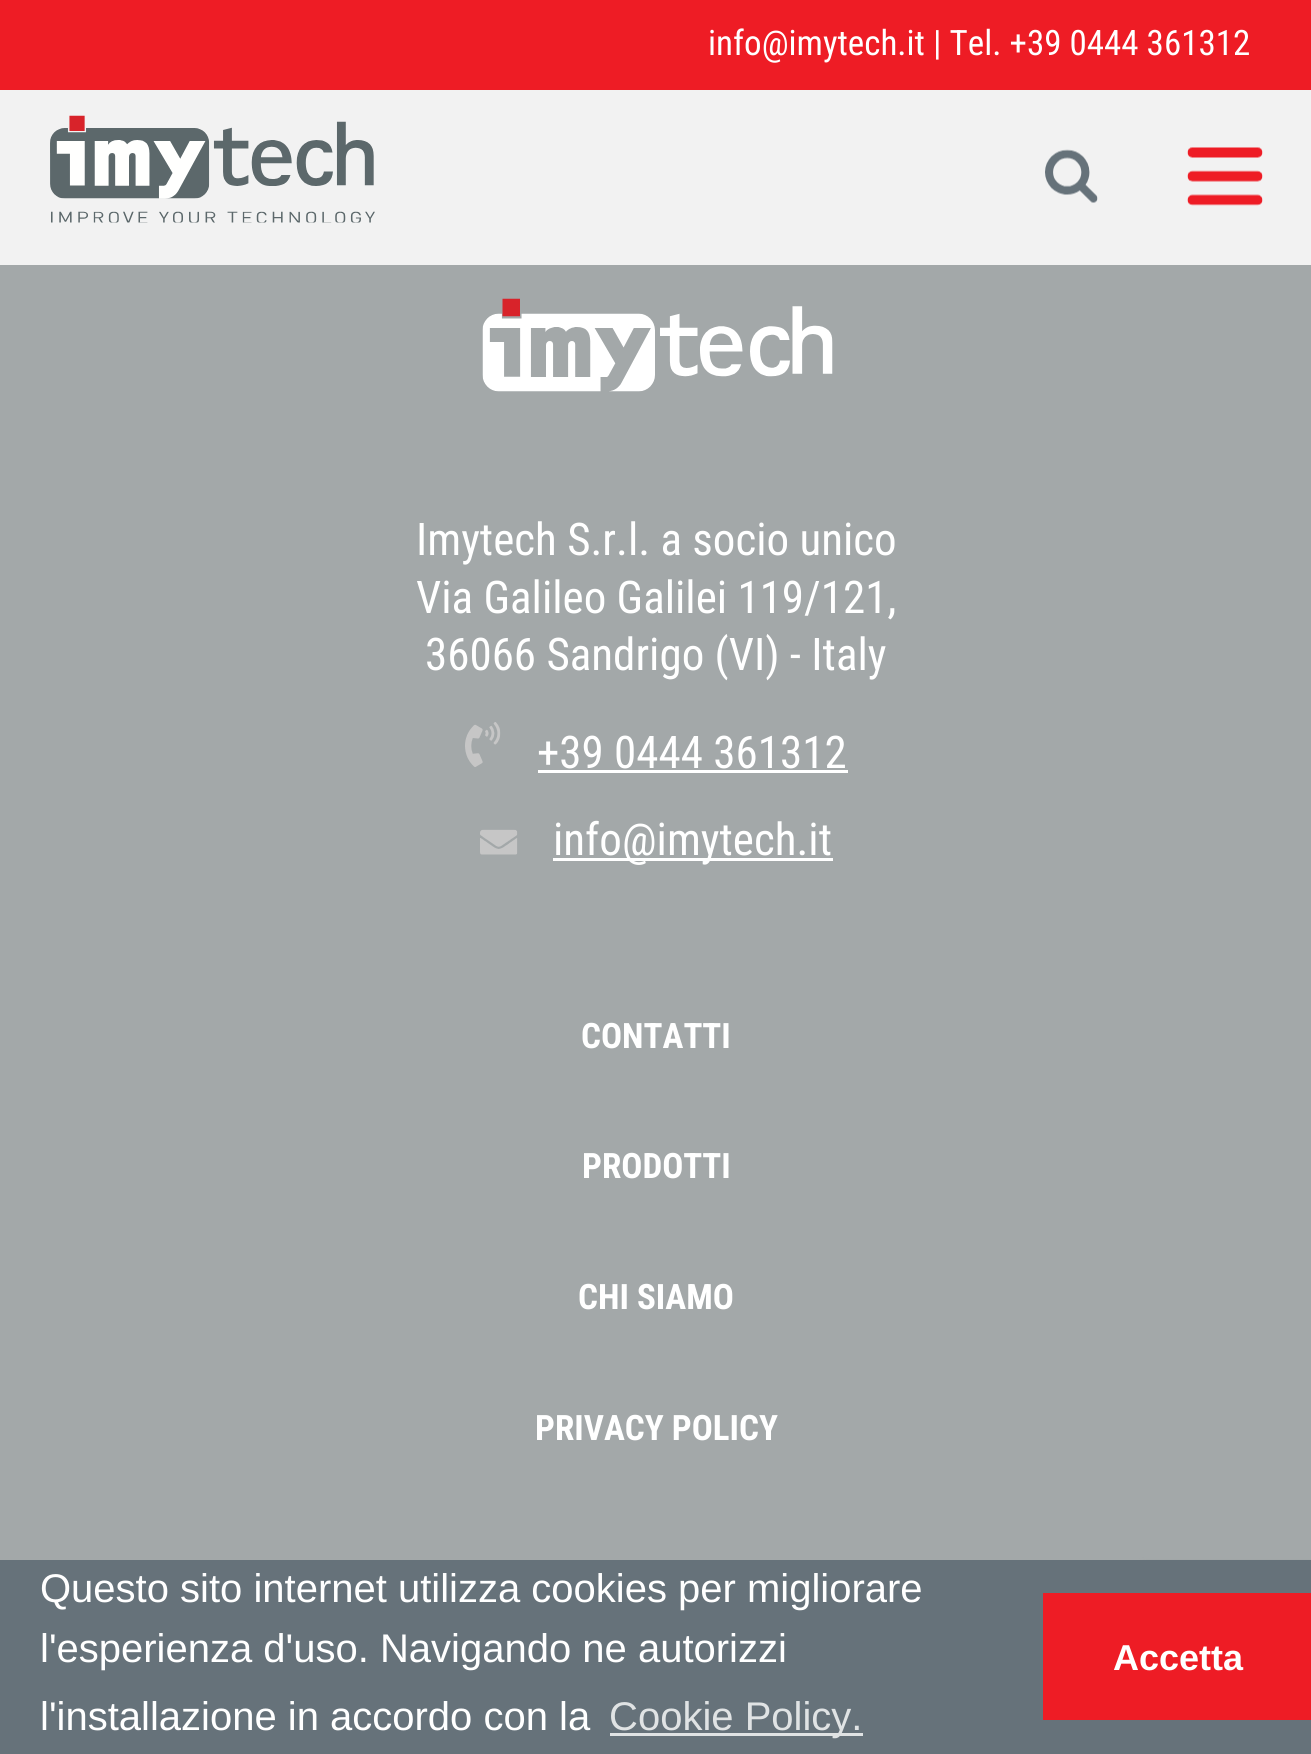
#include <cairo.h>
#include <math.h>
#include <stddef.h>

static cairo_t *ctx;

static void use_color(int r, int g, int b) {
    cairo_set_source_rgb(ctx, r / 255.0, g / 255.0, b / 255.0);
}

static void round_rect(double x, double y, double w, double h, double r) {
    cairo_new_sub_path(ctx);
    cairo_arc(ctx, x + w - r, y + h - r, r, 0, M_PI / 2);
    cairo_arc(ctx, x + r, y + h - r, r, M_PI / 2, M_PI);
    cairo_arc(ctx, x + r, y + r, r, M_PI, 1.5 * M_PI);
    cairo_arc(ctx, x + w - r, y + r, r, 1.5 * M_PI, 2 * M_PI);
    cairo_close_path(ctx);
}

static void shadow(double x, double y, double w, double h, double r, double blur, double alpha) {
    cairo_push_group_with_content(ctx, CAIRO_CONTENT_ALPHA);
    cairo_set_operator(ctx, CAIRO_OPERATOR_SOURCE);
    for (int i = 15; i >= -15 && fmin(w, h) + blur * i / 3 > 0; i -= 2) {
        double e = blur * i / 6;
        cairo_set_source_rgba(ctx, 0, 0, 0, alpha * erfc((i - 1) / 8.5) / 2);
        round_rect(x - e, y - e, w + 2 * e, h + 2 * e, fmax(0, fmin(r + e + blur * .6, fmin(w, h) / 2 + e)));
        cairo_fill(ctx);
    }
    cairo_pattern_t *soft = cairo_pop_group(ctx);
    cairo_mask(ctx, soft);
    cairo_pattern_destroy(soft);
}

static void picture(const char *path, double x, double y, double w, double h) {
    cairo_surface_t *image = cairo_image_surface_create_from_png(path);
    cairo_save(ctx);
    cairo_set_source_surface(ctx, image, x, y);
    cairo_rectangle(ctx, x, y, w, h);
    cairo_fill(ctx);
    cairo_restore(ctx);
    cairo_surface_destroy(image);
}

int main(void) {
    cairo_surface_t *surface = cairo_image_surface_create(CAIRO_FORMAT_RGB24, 1311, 1754);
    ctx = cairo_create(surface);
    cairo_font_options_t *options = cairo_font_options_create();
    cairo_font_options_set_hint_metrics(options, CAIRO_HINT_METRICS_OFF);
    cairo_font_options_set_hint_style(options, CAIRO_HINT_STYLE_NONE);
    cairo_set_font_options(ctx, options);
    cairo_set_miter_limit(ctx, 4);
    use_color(163, 168, 169);
    cairo_paint(ctx);
    use_color(242, 242, 242);
    cairo_rectangle(ctx, 0, 90, 1311, 175);
    cairo_fill(ctx);
    use_color(238, 28, 37);
    cairo_rectangle(ctx, 0, 0, 1311, 90);
    cairo_fill(ctx);
    cairo_select_font_face(ctx, "Roboto Condensed", CAIRO_FONT_SLANT_NORMAL, CAIRO_FONT_WEIGHT_NORMAL);
    cairo_set_font_size(ctx, 35);
    use_color(255, 255, 255);
    cairo_move_to(ctx, 708, 55);
    cairo_show_text(ctx, "info@imytech.it | Tel. +39 0444 361312");
    picture("img1.png", 50, 115, 325, 108);
    picture("img2.png", 1045, 149, 53, 54);
    picture("img3.png", 1187, 147, 76, 59);
    picture("img4.png", 482, 298, 351, 94);
    cairo_set_font_size(ctx, 45);
    cairo_move_to(ctx, 416, 555);
    cairo_show_text(ctx, "Imytech S.r.l. a socio unico");
    cairo_move_to(ctx, 416, 613);
    cairo_show_text(ctx, "Via Galileo Galilei 119/121,");
    cairo_move_to(ctx, 425, 670);
    cairo_show_text(ctx, "36066 Sandrigo (VI) - Italy");
    picture("img5.png", 465, 722, 36, 45);
    cairo_move_to(ctx, 537, 768);
    cairo_show_text(ctx, "+39 0444 361312");
    cairo_rectangle(ctx, 538, 770, 310, 3);
    cairo_fill(ctx);
    picture("img6.png", 480, 829, 38, 26);
    cairo_rectangle(ctx, 553, 858, 280, 3);
    cairo_fill(ctx);
    cairo_move_to(ctx, 553, 855);
    cairo_show_text(ctx, "info@imytech.it");
    cairo_select_font_face(ctx, "Roboto Condensed", CAIRO_FONT_SLANT_NORMAL, CAIRO_FONT_WEIGHT_BOLD);
    cairo_set_font_size(ctx, 35);
    cairo_move_to(ctx, 581, 1048);
    cairo_show_text(ctx, "CONTATTI");
    cairo_move_to(ctx, 582, 1178);
    cairo_show_text(ctx, "PRODOTTI");
    cairo_move_to(ctx, 578, 1309);
    cairo_show_text(ctx, "CHI SIAMO");
    cairo_move_to(ctx, 535, 1440);
    cairo_show_text(ctx, "PRIVACY POLICY");
    use_color(128, 128, 128);
    shadow(1138, 1570, 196, 150, 5, 6, 1);
    use_color(102, 114, 122);
    cairo_rectangle(ctx, 0, 1560, 1311, 194);
    cairo_fill(ctx);
    cairo_select_font_face(ctx, "Liberation Sans", CAIRO_FONT_SLANT_NORMAL, CAIRO_FONT_WEIGHT_NORMAL);
    cairo_set_font_size(ctx, 40);
    use_color(255, 255, 255);
    cairo_move_to(ctx, 40, 1602);
    cairo_show_text(ctx, "Questo sito internet utilizza cookies per migliorare");
    cairo_move_to(ctx, 40, 1662);
    cairo_show_text(ctx, "l'esperienza d'uso. Navigando ne autorizzi");
    cairo_move_to(ctx, 40, 1730);
    cairo_show_text(ctx, "l'installazione in accordo con la");
    use_color(224, 227, 228);
    cairo_rectangle(ctx, 610, 1733, 253, 3);
    cairo_fill(ctx);
    cairo_move_to(ctx, 609, 1730);
    cairo_show_text(ctx, "Cookie Policy.");
    use_color(238, 28, 37);
    cairo_rectangle(ctx, 1043, 1593, 268, 127);
    cairo_fill(ctx);
    cairo_select_font_face(ctx, "Liberation Sans", CAIRO_FONT_SLANT_NORMAL, CAIRO_FONT_WEIGHT_BOLD);
    cairo_set_font_size(ctx, 36);
    use_color(255, 255, 255);
    cairo_move_to(ctx, 1113, 1670);
    cairo_show_text(ctx, "Accetta");
    cairo_surface_write_to_png(surface, "result.png");
    cairo_font_options_destroy(options);
    cairo_destroy(ctx);
    cairo_surface_destroy(surface);
    return 0;
}
